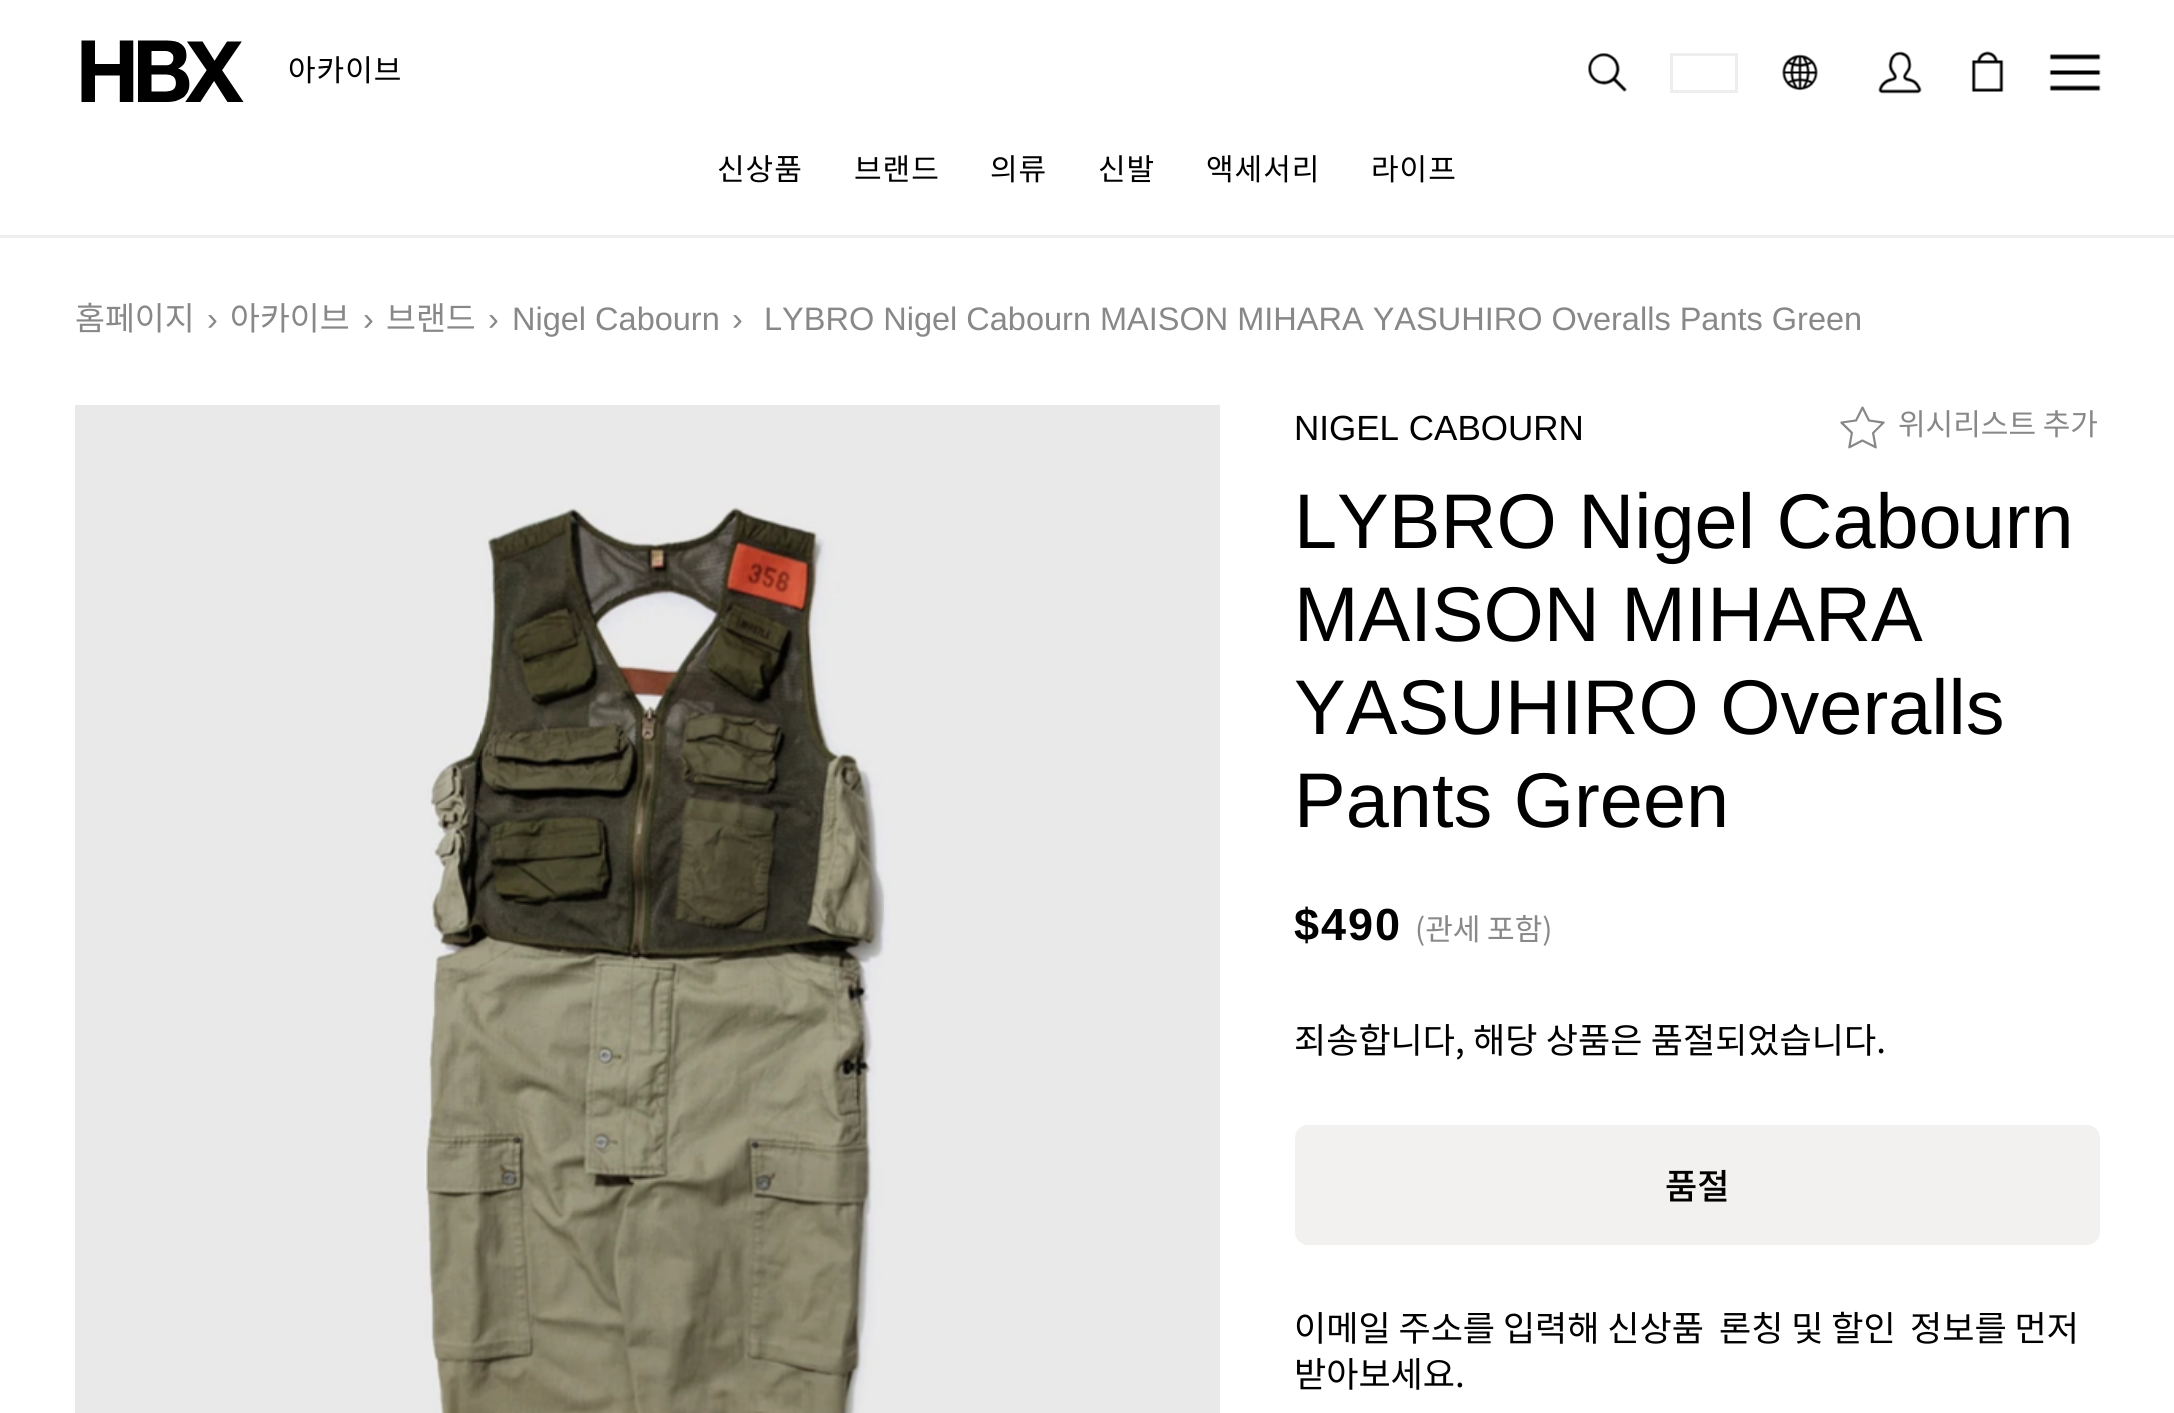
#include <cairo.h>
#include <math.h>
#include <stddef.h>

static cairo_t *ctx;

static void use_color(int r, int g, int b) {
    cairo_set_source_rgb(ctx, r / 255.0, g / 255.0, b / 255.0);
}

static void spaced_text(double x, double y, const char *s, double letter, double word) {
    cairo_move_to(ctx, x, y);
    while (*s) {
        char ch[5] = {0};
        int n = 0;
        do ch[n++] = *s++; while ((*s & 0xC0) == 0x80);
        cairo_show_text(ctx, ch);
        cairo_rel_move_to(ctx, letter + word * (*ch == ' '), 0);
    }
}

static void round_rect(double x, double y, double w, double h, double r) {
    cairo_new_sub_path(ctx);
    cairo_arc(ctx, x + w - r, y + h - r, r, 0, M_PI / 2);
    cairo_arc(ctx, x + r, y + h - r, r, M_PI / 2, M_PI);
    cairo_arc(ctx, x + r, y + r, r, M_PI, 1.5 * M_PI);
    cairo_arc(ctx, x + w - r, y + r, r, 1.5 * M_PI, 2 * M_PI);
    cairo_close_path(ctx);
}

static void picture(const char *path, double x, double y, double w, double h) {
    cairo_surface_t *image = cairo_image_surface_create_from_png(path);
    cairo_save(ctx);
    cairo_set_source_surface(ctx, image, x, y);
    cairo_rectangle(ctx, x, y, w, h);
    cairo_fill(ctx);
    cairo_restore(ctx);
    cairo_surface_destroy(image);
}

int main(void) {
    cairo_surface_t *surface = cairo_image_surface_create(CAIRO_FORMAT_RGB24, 2174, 1413);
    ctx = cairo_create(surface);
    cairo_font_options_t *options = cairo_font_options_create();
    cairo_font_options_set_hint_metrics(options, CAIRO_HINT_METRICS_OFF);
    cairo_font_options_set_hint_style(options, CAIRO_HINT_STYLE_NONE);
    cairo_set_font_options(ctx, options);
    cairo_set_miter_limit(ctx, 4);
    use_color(255, 255, 255);
    cairo_paint(ctx);
    use_color(238, 238, 238);
    cairo_rectangle(ctx, 0, 235, 2174, 3);
    cairo_fill(ctx);
    picture("img1.png", 81, 40, 163, 62);
    cairo_select_font_face(ctx, "Noto Sans KR", CAIRO_FONT_SLANT_NORMAL, CAIRO_FONT_WEIGHT_NORMAL);
    cairo_set_font_size(ctx, 30);
    use_color(0, 0, 0);
    spaced_text(288, 81, "아카이브", 1, 0);
    picture("img2.png", 1588, 53, 39, 39);
    cairo_rectangle(ctx, 1671.5, 54.5, 65, 37);
    use_color(238, 238, 238);
    cairo_set_line_width(ctx, 3);
    cairo_stroke(ctx);
    picture("img3.png", 1782, 54, 36, 37);
    picture("img4.png", 1878, 51, 44, 43);
    picture("img5.png", 1971, 51, 33, 41);
    picture("img6.png", 2049, 54, 52, 37);
    use_color(0, 0, 0);
    spaced_text(717, 180, "신상품", 1, 0);
    spaced_text(854, 180, "브랜드", 1, 0);
    spaced_text(990, 180, "의류", 1, 0);
    spaced_text(1098, 180, "신발", 1, 0);
    spaced_text(1206, 180, "액세서리", 1, 0);
    spaced_text(1371, 180, "라이프", 1, 0);
    cairo_set_font_size(ctx, 32.5);
    use_color(136, 136, 136);
    cairo_move_to(ctx, 75, 330);
    cairo_show_text(ctx, "홈페이지");
    cairo_select_font_face(ctx, "Liberation Sans", CAIRO_FONT_SLANT_NORMAL, CAIRO_FONT_WEIGHT_NORMAL);
    cairo_move_to(ctx, 207, 330);
    cairo_show_text(ctx, "›");
    cairo_select_font_face(ctx, "Noto Sans KR", CAIRO_FONT_SLANT_NORMAL, CAIRO_FONT_WEIGHT_NORMAL);
    cairo_move_to(ctx, 230, 330);
    cairo_show_text(ctx, "아카이브");
    cairo_select_font_face(ctx, "Liberation Sans", CAIRO_FONT_SLANT_NORMAL, CAIRO_FONT_WEIGHT_NORMAL);
    cairo_move_to(ctx, 363, 330);
    cairo_show_text(ctx, "›");
    cairo_select_font_face(ctx, "Noto Sans KR", CAIRO_FONT_SLANT_NORMAL, CAIRO_FONT_WEIGHT_NORMAL);
    cairo_move_to(ctx, 386, 330);
    cairo_show_text(ctx, "브랜드");
    cairo_select_font_face(ctx, "Liberation Sans", CAIRO_FONT_SLANT_NORMAL, CAIRO_FONT_WEIGHT_NORMAL);
    cairo_move_to(ctx, 488, 330);
    cairo_show_text(ctx, "›");
    cairo_move_to(ctx, 512, 330);
    cairo_show_text(ctx, "Nigel Cabourn");
    cairo_move_to(ctx, 732, 330);
    cairo_show_text(ctx, "›");
    cairo_move_to(ctx, 764, 330);
    cairo_show_text(ctx, "LYBRO Nigel Cabourn MAISON MIHARA YASUHIRO Overalls Pants Green");
    picture("img7.png", 75, 405, 1145, 1008);
    picture("img8.png", 427, 507, 459, 906);
    cairo_set_font_size(ctx, 35);
    use_color(0, 0, 0);
    cairo_move_to(ctx, 1294, 440);
    cairo_show_text(ctx, "NIGEL CABOURN");
    picture("img9.png", 1840, 406, 45, 43);
    cairo_select_font_face(ctx, "Noto Sans KR", CAIRO_FONT_SLANT_NORMAL, CAIRO_FONT_WEIGHT_NORMAL);
    cairo_set_font_size(ctx, 30);
    use_color(136, 136, 136);
    cairo_move_to(ctx, 1898, 435);
    cairo_show_text(ctx, "위시리스트 추가");
    cairo_select_font_face(ctx, "Liberation Sans", CAIRO_FONT_SLANT_NORMAL, CAIRO_FONT_WEIGHT_NORMAL);
    cairo_set_font_size(ctx, 77.5);
    use_color(0, 0, 0);
    cairo_move_to(ctx, 1294, 548);
    cairo_show_text(ctx, "LYBRO Nigel Cabourn");
    cairo_move_to(ctx, 1294, 641);
    cairo_show_text(ctx, "MAISON MIHARA");
    cairo_move_to(ctx, 1294, 734);
    cairo_show_text(ctx, "YASUHIRO Overalls");
    cairo_move_to(ctx, 1294, 827);
    cairo_show_text(ctx, "Pants Green");
    cairo_select_font_face(ctx, "Liberation Sans", CAIRO_FONT_SLANT_NORMAL, CAIRO_FONT_WEIGHT_BOLD);
    cairo_set_font_size(ctx, 45);
    spaced_text(1294, 940, "$490", 2, 0);
    cairo_select_font_face(ctx, "Noto Sans KR", CAIRO_FONT_SLANT_NORMAL, CAIRO_FONT_WEIGHT_NORMAL);
    cairo_set_font_size(ctx, 30);
    use_color(136, 136, 136);
    cairo_move_to(ctx, 1415, 940);
    cairo_show_text(ctx, "(관세 포함)");
    cairo_set_font_size(ctx, 35);
    use_color(0, 0, 0);
    spaced_text(1294, 1053, "죄송합니다, 해당 상품은 품절되었습니다.", 0, 0.5);
    use_color(242, 241, 240);
    round_rect(1296.5, 1126.5, 802, 117, 11.5);
    cairo_fill_preserve(ctx);
    cairo_stroke(ctx);
    cairo_select_font_face(ctx, "Noto Sans KR Medium", CAIRO_FONT_SLANT_NORMAL, CAIRO_FONT_WEIGHT_NORMAL);
    use_color(0, 0, 0);
    cairo_move_to(ctx, 1665, 1199);
    cairo_show_text(ctx, "품절");
    cairo_select_font_face(ctx, "Noto Sans KR", CAIRO_FONT_SLANT_NORMAL, CAIRO_FONT_WEIGHT_NORMAL);
    cairo_move_to(ctx, 1294, 1341);
    cairo_show_text(ctx, "이메일 주소를 입력해 신상품");
    cairo_move_to(ctx, 1719, 1341);
    cairo_show_text(ctx, "론칭 및 할인");
    cairo_move_to(ctx, 1910, 1341);
    cairo_show_text(ctx, "정보를 먼저");
    cairo_move_to(ctx, 1294, 1387);
    cairo_show_text(ctx, "받아보세요.");
    cairo_surface_write_to_png(surface, "result.png");
    cairo_font_options_destroy(options);
    cairo_destroy(ctx);
    cairo_surface_destroy(surface);
    return 0;
}
